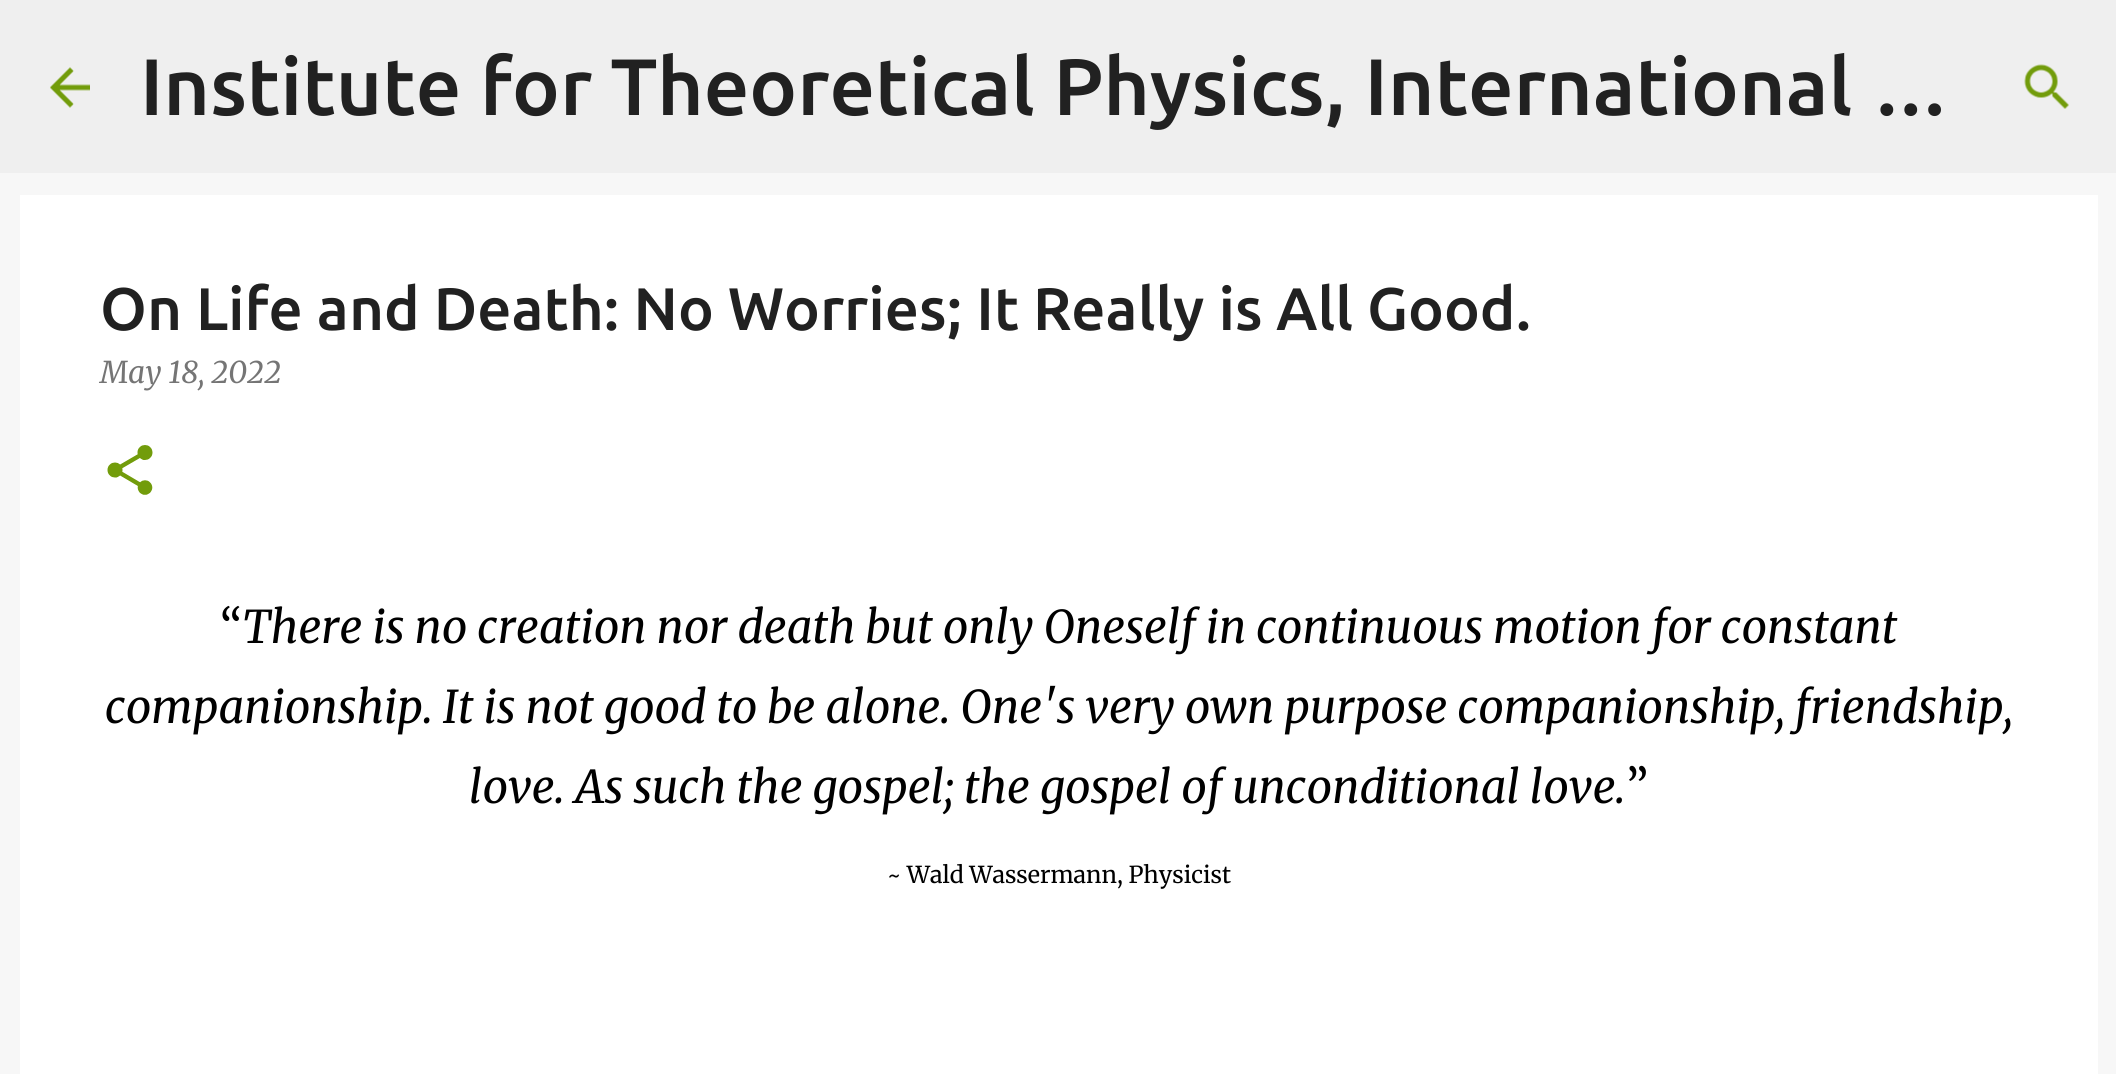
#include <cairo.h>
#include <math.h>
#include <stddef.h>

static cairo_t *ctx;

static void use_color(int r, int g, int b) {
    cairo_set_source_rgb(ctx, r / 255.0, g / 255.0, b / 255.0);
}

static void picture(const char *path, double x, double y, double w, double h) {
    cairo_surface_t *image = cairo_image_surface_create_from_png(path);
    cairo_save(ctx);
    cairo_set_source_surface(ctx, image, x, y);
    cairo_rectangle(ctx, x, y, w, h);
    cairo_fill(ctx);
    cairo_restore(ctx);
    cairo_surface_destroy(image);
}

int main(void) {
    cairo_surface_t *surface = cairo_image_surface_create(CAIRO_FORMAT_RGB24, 2116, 1074);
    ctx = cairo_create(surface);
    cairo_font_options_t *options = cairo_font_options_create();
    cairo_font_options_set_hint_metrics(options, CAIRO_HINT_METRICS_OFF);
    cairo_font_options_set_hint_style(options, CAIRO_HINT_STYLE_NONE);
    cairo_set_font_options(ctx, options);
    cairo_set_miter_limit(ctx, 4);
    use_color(247, 247, 247);
    cairo_paint(ctx);
    use_color(239, 239, 239);
    cairo_rectangle(ctx, 0, 0, 2116, 173);
    cairo_fill(ctx);
    picture("img1.png", 50, 67, 40, 41);
    cairo_select_font_face(ctx, "Ubuntu Medium", CAIRO_FONT_SLANT_NORMAL, CAIRO_FONT_WEIGHT_NORMAL);
    cairo_set_font_size(ctx, 80);
    use_color(33, 33, 33);
    cairo_move_to(ctx, 140, 115);
    cairo_show_text(ctx, "Institute for Theoretical Physics, International …");
    picture("img2.png", 2024, 64, 45, 45);
    use_color(255, 255, 255);
    cairo_rectangle(ctx, 20, 195, 2078, 879);
    cairo_fill(ctx);
    cairo_set_font_size(ctx, 60);
    use_color(33, 33, 33);
    cairo_move_to(ctx, 100, 330);
    cairo_show_text(ctx, "On Life and Death: No Worries; It Really is All Good.");
    cairo_select_font_face(ctx, "Merriweather", CAIRO_FONT_SLANT_ITALIC, CAIRO_FONT_WEIGHT_NORMAL);
    cairo_set_font_size(ctx, 30);
    use_color(117, 117, 117);
    cairo_move_to(ctx, 100, 383);
    cairo_show_text(ctx, "May 18, 2022");
    picture("img3.png", 107, 445, 46, 50);
    cairo_select_font_face(ctx, "Merriweather Light", CAIRO_FONT_SLANT_NORMAL, CAIRO_FONT_WEIGHT_NORMAL);
    cairo_set_font_size(ctx, 45);
    use_color(0, 0, 0);
    cairo_move_to(ctx, 220, 643);
    cairo_show_text(ctx, "“");
    cairo_select_font_face(ctx, "Merriweather", CAIRO_FONT_SLANT_ITALIC, CAIRO_FONT_WEIGHT_NORMAL);
    cairo_move_to(ctx, 242, 643);
    cairo_show_text(ctx, "There is no creation nor death but only Oneself in continuous motion for constant");
    cairo_move_to(ctx, 105, 723);
    cairo_show_text(ctx, "companionship. It is not good to be alone. One's very own purpose companionship, friendship,");
    cairo_move_to(ctx, 469, 803);
    cairo_show_text(ctx, "love. As such the gospel; the gospel of unconditional love.");
    cairo_select_font_face(ctx, "Merriweather Light", CAIRO_FONT_SLANT_NORMAL, CAIRO_FONT_WEIGHT_NORMAL);
    cairo_move_to(ctx, 1626, 803);
    cairo_show_text(ctx, "”");
    cairo_set_font_size(ctx, 23.3);
    cairo_move_to(ctx, 887, 883);
    cairo_show_text(ctx, "~ Wald Wassermann, Physicist");
    cairo_surface_write_to_png(surface, "result.png");
    cairo_font_options_destroy(options);
    cairo_destroy(ctx);
    cairo_surface_destroy(surface);
    return 0;
}
